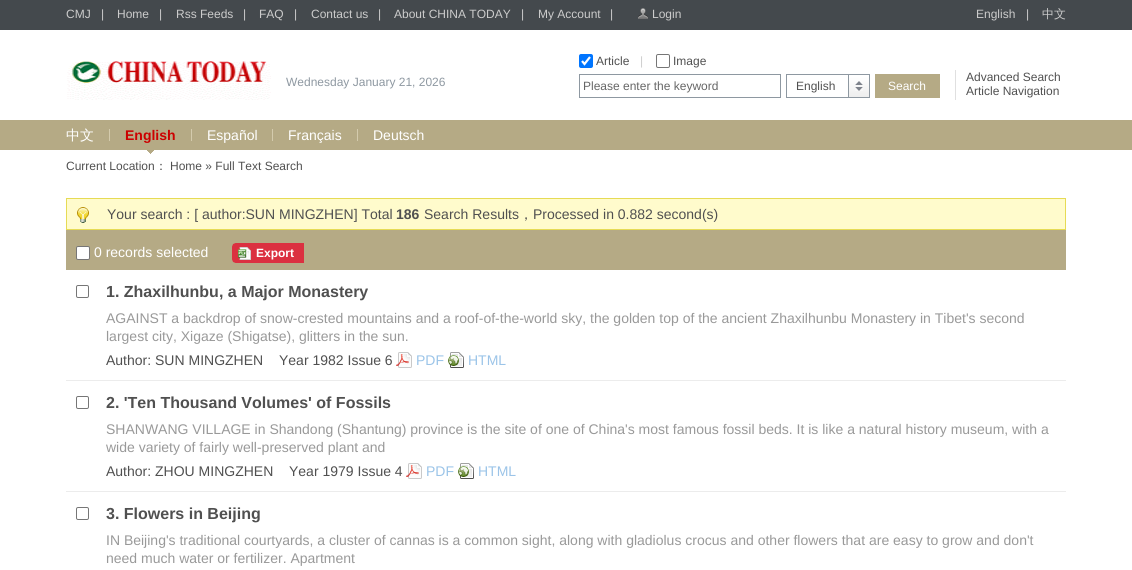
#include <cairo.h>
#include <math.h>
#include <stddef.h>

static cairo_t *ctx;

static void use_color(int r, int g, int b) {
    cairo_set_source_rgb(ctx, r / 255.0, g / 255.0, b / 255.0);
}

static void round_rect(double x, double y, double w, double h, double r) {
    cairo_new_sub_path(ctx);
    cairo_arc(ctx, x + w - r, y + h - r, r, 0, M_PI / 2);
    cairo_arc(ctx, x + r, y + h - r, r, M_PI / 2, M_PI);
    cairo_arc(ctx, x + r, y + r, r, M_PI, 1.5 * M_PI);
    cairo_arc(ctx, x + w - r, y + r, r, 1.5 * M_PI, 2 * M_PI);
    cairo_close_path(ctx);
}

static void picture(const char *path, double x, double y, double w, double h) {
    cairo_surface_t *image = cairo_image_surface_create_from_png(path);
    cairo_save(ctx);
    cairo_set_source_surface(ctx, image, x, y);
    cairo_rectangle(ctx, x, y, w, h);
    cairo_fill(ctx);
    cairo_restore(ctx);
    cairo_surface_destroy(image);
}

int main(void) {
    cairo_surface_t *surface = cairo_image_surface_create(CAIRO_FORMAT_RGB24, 1132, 570);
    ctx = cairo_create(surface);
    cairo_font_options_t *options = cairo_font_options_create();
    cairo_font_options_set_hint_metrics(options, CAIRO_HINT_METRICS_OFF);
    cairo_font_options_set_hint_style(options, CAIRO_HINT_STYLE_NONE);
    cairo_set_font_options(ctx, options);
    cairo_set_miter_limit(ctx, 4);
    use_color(255, 255, 255);
    cairo_paint(ctx);
    use_color(68, 73, 77);
    cairo_rectangle(ctx, 0, 0, 1132, 30);
    cairo_fill(ctx);
    cairo_select_font_face(ctx, "Liberation Sans", CAIRO_FONT_SLANT_NORMAL, CAIRO_FONT_WEIGHT_NORMAL);
    cairo_set_font_size(ctx, 12);
    use_color(204, 204, 204);
    cairo_move_to(ctx, 66, 18);
    cairo_show_text(ctx, "CMJ");
    cairo_move_to(ctx, 101, 18);
    cairo_show_text(ctx, "|");
    cairo_move_to(ctx, 117, 18);
    cairo_show_text(ctx, "Home");
    cairo_move_to(ctx, 159, 18);
    cairo_show_text(ctx, "|");
    cairo_move_to(ctx, 176, 18);
    cairo_show_text(ctx, "Rss Feeds");
    cairo_move_to(ctx, 243, 18);
    cairo_show_text(ctx, "|");
    cairo_move_to(ctx, 259, 18);
    cairo_show_text(ctx, "FAQ");
    cairo_move_to(ctx, 294, 18);
    cairo_show_text(ctx, "|");
    cairo_move_to(ctx, 311, 18);
    cairo_show_text(ctx, "Contact us");
    cairo_move_to(ctx, 378, 18);
    cairo_show_text(ctx, "|");
    cairo_move_to(ctx, 394, 18);
    cairo_show_text(ctx, "About CHINA TODAY");
    cairo_move_to(ctx, 521, 18);
    cairo_show_text(ctx, "|");
    cairo_move_to(ctx, 538, 18);
    cairo_show_text(ctx, "My Account");
    cairo_move_to(ctx, 610, 18);
    cairo_show_text(ctx, "|");
    picture("img1.png", 638, 8, 10, 11);
    cairo_move_to(ctx, 652, 18);
    cairo_show_text(ctx, "Login");
    cairo_move_to(ctx, 976, 18);
    cairo_show_text(ctx, "English");
    cairo_move_to(ctx, 1026, 18);
    cairo_show_text(ctx, "|");
    cairo_select_font_face(ctx, "WenQuanYi Zen Hei Medium", CAIRO_FONT_SLANT_NORMAL, CAIRO_FONT_WEIGHT_NORMAL);
    cairo_move_to(ctx, 1042, 18);
    cairo_show_text(ctx, "中文");
    picture("img2.png", 67, 61, 204, 39);
    cairo_select_font_face(ctx, "Liberation Sans", CAIRO_FONT_SLANT_NORMAL, CAIRO_FONT_WEIGHT_NORMAL);
    use_color(142, 152, 161);
    cairo_move_to(ctx, 286, 86);
    cairo_show_text(ctx, "Wednesday January 21, 2026");
    use_color(0, 117, 255);
    round_rect(579, 54, 14, 14, 2);
    cairo_fill(ctx);
    cairo_new_path(ctx);
    cairo_move_to(ctx, 582, 61);
    cairo_line_to(ctx, 584.5, 64);
    cairo_line_to(ctx, 590, 57);
    use_color(255, 255, 255);
    cairo_set_line_width(ctx, 2.2);
    cairo_stroke(ctx);
    use_color(80, 80, 80);
    cairo_move_to(ctx, 596, 65);
    cairo_show_text(ctx, "Article");
    use_color(204, 204, 204);
    cairo_move_to(ctx, 640, 65);
    cairo_show_text(ctx, "|");
    round_rect(656.5, 54.5, 13, 13, 1.5);
    use_color(118, 118, 118);
    cairo_set_line_width(ctx, 1);
    cairo_stroke(ctx);
    use_color(80, 80, 80);
    cairo_move_to(ctx, 673, 65);
    cairo_show_text(ctx, "Image");
    cairo_rectangle(ctx, 579.5, 74.5, 201, 23);
    use_color(142, 152, 161);
    cairo_stroke(ctx);
    use_color(102, 102, 102);
    cairo_move_to(ctx, 583, 90);
    cairo_show_text(ctx, "Please enter the keyword");
    picture("img3.png", 786, 74, 84, 24);
    use_color(80, 80, 80);
    cairo_move_to(ctx, 796, 90);
    cairo_show_text(ctx, "English");
    use_color(181, 170, 133);
    cairo_rectangle(ctx, 875, 74, 65, 24);
    cairo_fill(ctx);
    use_color(255, 255, 255);
    cairo_move_to(ctx, 888, 90);
    cairo_show_text(ctx, "Search");
    use_color(224, 224, 224);
    cairo_rectangle(ctx, 955, 70, 1, 30);
    cairo_fill(ctx);
    use_color(80, 80, 80);
    cairo_move_to(ctx, 966, 81);
    cairo_show_text(ctx, "Advanced Search");
    cairo_move_to(ctx, 966, 95);
    cairo_show_text(ctx, "Article Navigation");
    use_color(181, 170, 133);
    cairo_rectangle(ctx, 0, 120, 1132, 30);
    cairo_fill(ctx);
    cairo_select_font_face(ctx, "WenQuanYi Zen Hei Medium", CAIRO_FONT_SLANT_NORMAL, CAIRO_FONT_WEIGHT_NORMAL);
    cairo_set_font_size(ctx, 14);
    use_color(255, 255, 255);
    cairo_move_to(ctx, 66, 140);
    cairo_show_text(ctx, "中文");
    use_color(212, 203, 173);
    cairo_rectangle(ctx, 109, 129, 1, 12);
    cairo_fill(ctx);
    picture("img4.png", 147, 150, 7, 4);
    cairo_select_font_face(ctx, "Liberation Sans", CAIRO_FONT_SLANT_NORMAL, CAIRO_FONT_WEIGHT_BOLD);
    use_color(204, 0, 0);
    cairo_move_to(ctx, 125, 140);
    cairo_show_text(ctx, "English");
    use_color(212, 203, 173);
    cairo_rectangle(ctx, 191, 129, 1, 12);
    cairo_fill(ctx);
    cairo_select_font_face(ctx, "Liberation Sans", CAIRO_FONT_SLANT_NORMAL, CAIRO_FONT_WEIGHT_NORMAL);
    use_color(255, 255, 255);
    cairo_move_to(ctx, 207, 140);
    cairo_show_text(ctx, "Español");
    use_color(212, 203, 173);
    cairo_rectangle(ctx, 272, 129, 1, 12);
    cairo_fill(ctx);
    use_color(255, 255, 255);
    cairo_move_to(ctx, 288, 140);
    cairo_show_text(ctx, "Français");
    use_color(212, 203, 173);
    cairo_rectangle(ctx, 357, 129, 1, 12);
    cairo_fill(ctx);
    use_color(255, 255, 255);
    cairo_move_to(ctx, 373, 140);
    cairo_show_text(ctx, "Deutsch");
    cairo_set_font_size(ctx, 12);
    use_color(80, 80, 80);
    cairo_move_to(ctx, 66, 170);
    cairo_show_text(ctx, "Current Location");
    cairo_select_font_face(ctx, "WenQuanYi Zen Hei Medium", CAIRO_FONT_SLANT_NORMAL, CAIRO_FONT_WEIGHT_NORMAL);
    cairo_move_to(ctx, 155, 170);
    cairo_show_text(ctx, "：");
    cairo_select_font_face(ctx, "Liberation Sans", CAIRO_FONT_SLANT_NORMAL, CAIRO_FONT_WEIGHT_NORMAL);
    cairo_move_to(ctx, 170, 170);
    cairo_show_text(ctx, "Home » Full Text Search");
    use_color(255, 251, 204);
    cairo_rectangle(ctx, 67, 199, 998, 30);
    cairo_fill(ctx);
    picture("img5.png", 77, 207, 12, 16);
    cairo_rectangle(ctx, 66.5, 198.5, 999, 31);
    use_color(230, 219, 85);
    cairo_stroke(ctx);
    cairo_set_font_size(ctx, 14);
    use_color(80, 80, 80);
    cairo_move_to(ctx, 107, 219);
    cairo_show_text(ctx, "Your search : [ author:SUN MINGZHEN] Total");
    cairo_select_font_face(ctx, "Liberation Sans", CAIRO_FONT_SLANT_NORMAL, CAIRO_FONT_WEIGHT_BOLD);
    cairo_move_to(ctx, 396, 219);
    cairo_show_text(ctx, "186");
    cairo_select_font_face(ctx, "Liberation Sans", CAIRO_FONT_SLANT_NORMAL, CAIRO_FONT_WEIGHT_NORMAL);
    cairo_move_to(ctx, 424, 219);
    cairo_show_text(ctx, "Search Results");
    cairo_select_font_face(ctx, "WenQuanYi Zen Hei Medium", CAIRO_FONT_SLANT_NORMAL, CAIRO_FONT_WEIGHT_NORMAL);
    cairo_move_to(ctx, 519, 219);
    cairo_show_text(ctx, "，");
    cairo_select_font_face(ctx, "Liberation Sans", CAIRO_FONT_SLANT_NORMAL, CAIRO_FONT_WEIGHT_NORMAL);
    cairo_move_to(ctx, 533, 219);
    cairo_show_text(ctx, "Processed in 0.882 second(s)");
    use_color(181, 170, 133);
    cairo_rectangle(ctx, 66, 230, 1000, 40);
    cairo_fill(ctx);
    use_color(255, 255, 255);
    round_rect(76.5, 246.5, 13, 13, 1.5);
    cairo_fill_preserve(ctx);
    use_color(118, 118, 118);
    cairo_stroke(ctx);
    use_color(255, 255, 255);
    cairo_move_to(ctx, 94, 257);
    cairo_show_text(ctx, "0 records selected");
    picture("img6.png", 232, 243, 72, 20);
    cairo_select_font_face(ctx, "Liberation Sans", CAIRO_FONT_SLANT_NORMAL, CAIRO_FONT_WEIGHT_BOLD);
    cairo_set_font_size(ctx, 12);
    cairo_move_to(ctx, 256, 257);
    cairo_show_text(ctx, "Export");
    use_color(236, 236, 236);
    cairo_rectangle(ctx, 66, 380, 1000, 1);
    cairo_fill(ctx);
    round_rect(76.5, 285.5, 12, 12, 1.5);
    use_color(118, 118, 118);
    cairo_stroke(ctx);
    cairo_set_font_size(ctx, 16);
    use_color(80, 80, 80);
    cairo_move_to(ctx, 106, 297);
    cairo_show_text(ctx, "1. Zhaxilhunbu, a Major Monastery");
    cairo_select_font_face(ctx, "Liberation Sans", CAIRO_FONT_SLANT_NORMAL, CAIRO_FONT_WEIGHT_NORMAL);
    cairo_set_font_size(ctx, 14);
    use_color(153, 153, 153);
    cairo_move_to(ctx, 106, 323);
    cairo_show_text(ctx, "AGAINST a backdrop of snow-crested mountains and a roof-of-the-world sky, the golden top of the ancient Zhaxilhunbu Monastery in Tibet's second");
    cairo_move_to(ctx, 106, 341);
    cairo_show_text(ctx, "largest city, Xigaze (Shigatse), glitters in the sun.");
    use_color(80, 80, 80);
    cairo_move_to(ctx, 106, 365);
    cairo_show_text(ctx, "Author: SUN MINGZHEN");
    cairo_move_to(ctx, 279, 365);
    cairo_show_text(ctx, "Year 1982 Issue 6");
    picture("img7.png", 396, 352, 16, 16);
    use_color(155, 196, 232);
    cairo_move_to(ctx, 416, 365);
    cairo_show_text(ctx, "PDF");
    picture("img8.png", 448, 352, 16, 16);
    cairo_move_to(ctx, 468, 365);
    cairo_show_text(ctx, "HTML");
    use_color(236, 236, 236);
    cairo_rectangle(ctx, 66, 491, 1000, 1);
    cairo_fill(ctx);
    round_rect(76.5, 396.5, 12, 12, 1.5);
    use_color(118, 118, 118);
    cairo_stroke(ctx);
    cairo_select_font_face(ctx, "Liberation Sans", CAIRO_FONT_SLANT_NORMAL, CAIRO_FONT_WEIGHT_BOLD);
    cairo_set_font_size(ctx, 16);
    use_color(80, 80, 80);
    cairo_move_to(ctx, 106, 408);
    cairo_show_text(ctx, "2. 'Ten Thousand Volumes' of Fossils");
    cairo_select_font_face(ctx, "Liberation Sans", CAIRO_FONT_SLANT_NORMAL, CAIRO_FONT_WEIGHT_NORMAL);
    cairo_set_font_size(ctx, 14);
    use_color(153, 153, 153);
    cairo_move_to(ctx, 106, 434);
    cairo_show_text(ctx, "SHANWANG VILLAGE in Shandong (Shantung) province is the site of one of China's most famous fossil beds. It is like a natural history museum, with a");
    cairo_move_to(ctx, 106, 452);
    cairo_show_text(ctx, "wide variety of fairly well-preserved plant and");
    use_color(80, 80, 80);
    cairo_move_to(ctx, 106, 476);
    cairo_show_text(ctx, "Author: ZHOU MINGZHEN");
    cairo_move_to(ctx, 289, 476);
    cairo_show_text(ctx, "Year 1979 Issue 4");
    picture("img7.png", 406, 463, 16, 16);
    use_color(155, 196, 232);
    cairo_move_to(ctx, 426, 476);
    cairo_show_text(ctx, "PDF");
    picture("img8.png", 458, 463, 16, 16);
    cairo_move_to(ctx, 478, 476);
    cairo_show_text(ctx, "HTML");
    round_rect(76.5, 507.5, 12, 12, 1.5);
    use_color(118, 118, 118);
    cairo_stroke(ctx);
    cairo_select_font_face(ctx, "Liberation Sans", CAIRO_FONT_SLANT_NORMAL, CAIRO_FONT_WEIGHT_BOLD);
    cairo_set_font_size(ctx, 16);
    use_color(80, 80, 80);
    cairo_move_to(ctx, 106, 519);
    cairo_show_text(ctx, "3. Flowers in Beijing");
    cairo_select_font_face(ctx, "Liberation Sans", CAIRO_FONT_SLANT_NORMAL, CAIRO_FONT_WEIGHT_NORMAL);
    cairo_set_font_size(ctx, 14);
    use_color(153, 153, 153);
    cairo_move_to(ctx, 106, 545);
    cairo_show_text(ctx, "IN Beijing's traditional courtyards, a cluster of cannas is a common sight, along with gladiolus crocus and other flowers that are easy to grow and don't");
    cairo_move_to(ctx, 106, 563);
    cairo_show_text(ctx, "need much water or fertilizer. Apartment");
    cairo_surface_write_to_png(surface, "result.png");
    cairo_font_options_destroy(options);
    cairo_destroy(ctx);
    cairo_surface_destroy(surface);
    return 0;
}
